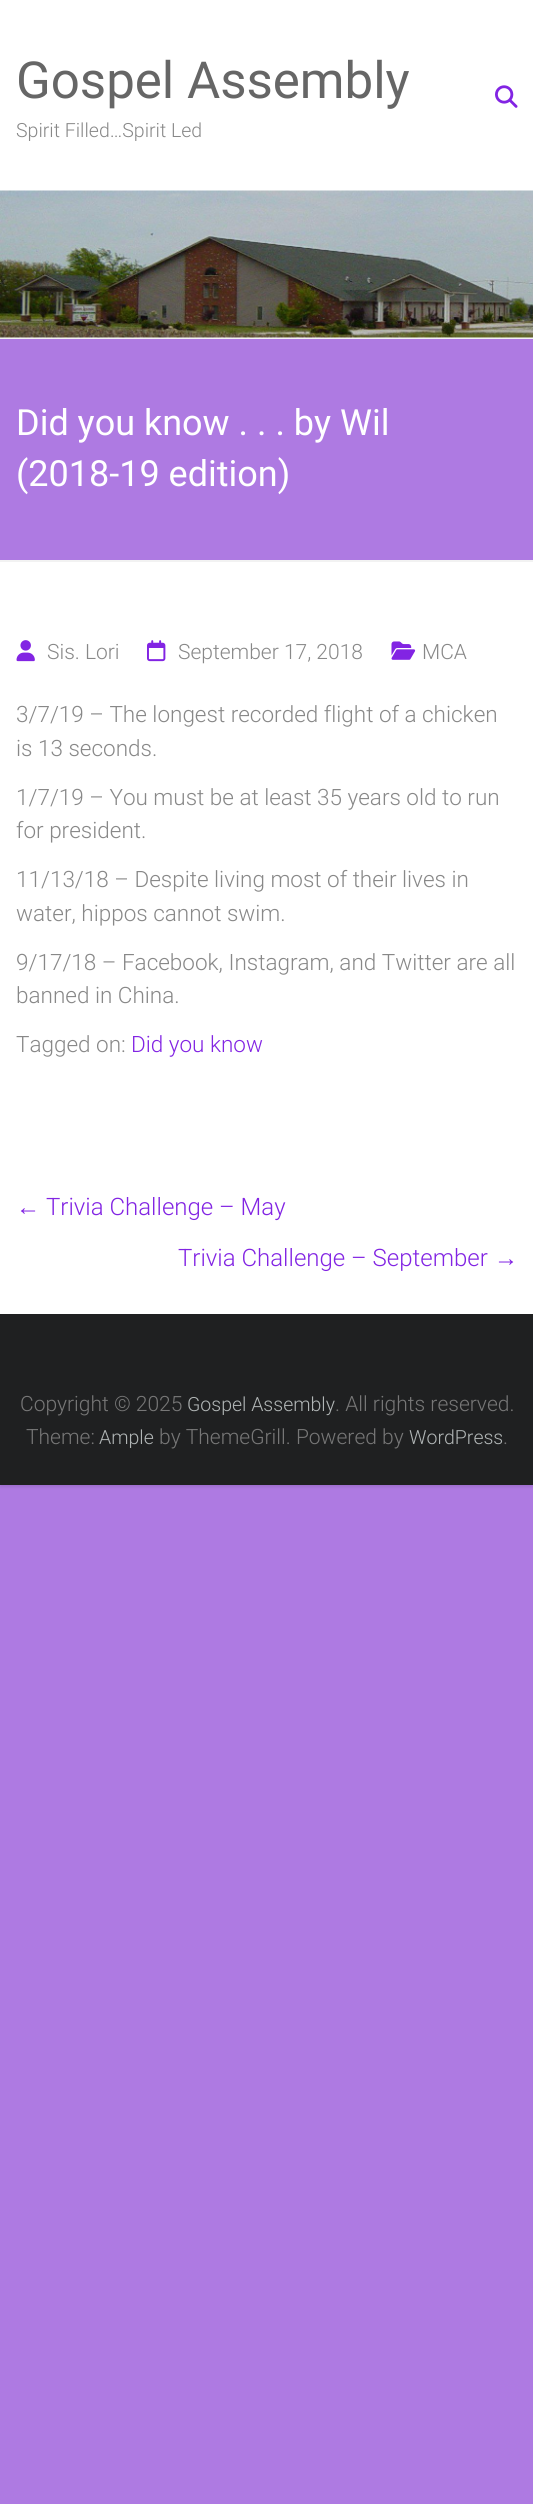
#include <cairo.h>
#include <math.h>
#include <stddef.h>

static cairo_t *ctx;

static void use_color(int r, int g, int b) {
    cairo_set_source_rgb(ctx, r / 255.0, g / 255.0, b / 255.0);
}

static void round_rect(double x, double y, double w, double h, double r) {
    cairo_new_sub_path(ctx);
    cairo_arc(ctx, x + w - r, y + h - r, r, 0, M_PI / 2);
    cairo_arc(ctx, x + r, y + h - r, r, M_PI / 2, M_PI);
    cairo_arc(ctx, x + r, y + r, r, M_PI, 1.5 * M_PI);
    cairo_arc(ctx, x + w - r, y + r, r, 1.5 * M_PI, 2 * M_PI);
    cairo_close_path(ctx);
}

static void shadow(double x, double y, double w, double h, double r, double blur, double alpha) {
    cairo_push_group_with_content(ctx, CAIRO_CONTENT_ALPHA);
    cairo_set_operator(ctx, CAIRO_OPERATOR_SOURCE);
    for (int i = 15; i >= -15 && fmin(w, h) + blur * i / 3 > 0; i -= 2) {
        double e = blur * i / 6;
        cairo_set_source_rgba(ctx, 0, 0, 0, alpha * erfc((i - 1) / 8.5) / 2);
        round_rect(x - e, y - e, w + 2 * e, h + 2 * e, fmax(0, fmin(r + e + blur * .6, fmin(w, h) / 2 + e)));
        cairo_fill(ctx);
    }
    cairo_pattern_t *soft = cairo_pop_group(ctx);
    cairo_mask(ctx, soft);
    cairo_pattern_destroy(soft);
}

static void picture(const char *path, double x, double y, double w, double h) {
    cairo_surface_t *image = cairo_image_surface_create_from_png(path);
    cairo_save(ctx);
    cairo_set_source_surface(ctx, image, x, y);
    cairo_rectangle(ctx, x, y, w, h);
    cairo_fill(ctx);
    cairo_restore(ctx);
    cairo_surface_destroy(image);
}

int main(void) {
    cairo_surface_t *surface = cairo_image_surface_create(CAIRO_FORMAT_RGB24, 533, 2504);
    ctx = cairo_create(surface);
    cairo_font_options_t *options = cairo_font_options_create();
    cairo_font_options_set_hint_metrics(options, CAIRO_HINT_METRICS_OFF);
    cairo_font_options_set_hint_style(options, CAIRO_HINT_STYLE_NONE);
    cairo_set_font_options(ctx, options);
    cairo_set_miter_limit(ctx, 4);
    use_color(174, 122, 226);
    cairo_paint(ctx);
    use_color(0, 0, 0);
    shadow(0, 2, 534, 1485, 0, 1.5, 0.1);
    use_color(255, 255, 255);
    cairo_rectangle(ctx, 0, 0, 533, 1314);
    cairo_fill(ctx);
    use_color(242, 242, 242);
    cairo_rectangle(ctx, 0, 338, 533, 1);
    cairo_fill(ctx);
    cairo_select_font_face(ctx, "Roboto", CAIRO_FONT_SLANT_NORMAL, CAIRO_FONT_WEIGHT_NORMAL);
    cairo_set_font_size(ctx, 51);
    use_color(102, 102, 102);
    cairo_move_to(ctx, 16, 98);
    cairo_show_text(ctx, "Gospel Assembly");
    cairo_select_font_face(ctx, "Roboto Light", CAIRO_FONT_SLANT_NORMAL, CAIRO_FONT_WEIGHT_NORMAL);
    cairo_set_font_size(ctx, 19.5);
    use_color(136, 136, 136);
    cairo_move_to(ctx, 16, 137);
    cairo_show_text(ctx, "Spirit Filled…Spirit Led");
    picture("img1.png", 495, 85, 23, 23);
    picture("img2.png", 0, 190, 533, 148);
    use_color(174, 122, 226);
    cairo_rectangle(ctx, 0, 339, 533, 221);
    cairo_fill(ctx);
    use_color(242, 242, 242);
    cairo_rectangle(ctx, 0, 560, 533, 2);
    cairo_fill(ctx);
    cairo_select_font_face(ctx, "Roboto", CAIRO_FONT_SLANT_NORMAL, CAIRO_FONT_WEIGHT_NORMAL);
    cairo_set_font_size(ctx, 36);
    use_color(255, 255, 255);
    cairo_move_to(ctx, 16, 435);
    cairo_show_text(ctx, "Did you know . . . by Wil");
    cairo_move_to(ctx, 16, 486);
    cairo_show_text(ctx, "(2018-19 edition)");
    picture("img3.png", 16, 640, 19, 22);
    cairo_select_font_face(ctx, "Roboto Light", CAIRO_FONT_SLANT_NORMAL, CAIRO_FONT_WEIGHT_NORMAL);
    cairo_set_font_size(ctx, 21);
    use_color(136, 136, 136);
    cairo_move_to(ctx, 47, 659);
    cairo_show_text(ctx, "Sis. Lori");
    picture("img4.png", 147, 640, 19, 22);
    cairo_move_to(ctx, 178, 659);
    cairo_show_text(ctx, "September 17, 2018");
    picture("img5.png", 391, 641, 25, 19);
    cairo_move_to(ctx, 422, 659);
    cairo_show_text(ctx, "MCA");
    cairo_set_font_size(ctx, 22.5);
    cairo_move_to(ctx, 16, 722);
    cairo_show_text(ctx, "3/7/19 – The longest recorded flight of a chicken");
    cairo_move_to(ctx, 16, 756);
    cairo_show_text(ctx, "is 13 seconds.");
    cairo_move_to(ctx, 16, 805);
    cairo_show_text(ctx, "1/7/19 – You must be at least 35 years old to run");
    cairo_move_to(ctx, 16, 838);
    cairo_show_text(ctx, "for president.");
    cairo_move_to(ctx, 16, 887);
    cairo_show_text(ctx, "11/13/18 – Despite living most of their lives in");
    cairo_move_to(ctx, 16, 921);
    cairo_show_text(ctx, "water, hippos cannot swim.");
    cairo_move_to(ctx, 16, 970);
    cairo_show_text(ctx, "9/17/18 – Facebook, Instagram, and Twitter are all");
    cairo_move_to(ctx, 16, 1003);
    cairo_show_text(ctx, "banned in China.");
    cairo_move_to(ctx, 16, 1052);
    cairo_show_text(ctx, "Tagged on:");
    use_color(130, 36, 227);
    cairo_move_to(ctx, 131, 1052);
    cairo_show_text(ctx, "Did you know");
    cairo_select_font_face(ctx, "Liberation Sans", CAIRO_FONT_SLANT_NORMAL, CAIRO_FONT_WEIGHT_NORMAL);
    cairo_set_font_size(ctx, 24);
    cairo_move_to(ctx, 16, 1215);
    cairo_show_text(ctx, "←");
    cairo_select_font_face(ctx, "Roboto Light", CAIRO_FONT_SLANT_NORMAL, CAIRO_FONT_WEIGHT_NORMAL);
    cairo_move_to(ctx, 46, 1215);
    cairo_show_text(ctx, "Trivia Challenge – May");
    cairo_move_to(ctx, 178, 1266);
    cairo_show_text(ctx, "Trivia Challenge – September");
    cairo_select_font_face(ctx, "Liberation Sans", CAIRO_FONT_SLANT_NORMAL, CAIRO_FONT_WEIGHT_NORMAL);
    cairo_move_to(ctx, 494, 1266);
    cairo_show_text(ctx, "→");
    use_color(31, 32, 33);
    cairo_rectangle(ctx, 0, 1314, 533, 171);
    cairo_fill(ctx);
    cairo_select_font_face(ctx, "Roboto Light", CAIRO_FONT_SLANT_NORMAL, CAIRO_FONT_WEIGHT_NORMAL);
    cairo_set_font_size(ctx, 21);
    use_color(119, 119, 119);
    cairo_move_to(ctx, 20, 1411);
    cairo_show_text(ctx, "Copyright © 2025");
    cairo_set_font_size(ctx, 19.5);
    use_color(177, 182, 182);
    cairo_move_to(ctx, 187, 1411);
    cairo_show_text(ctx, "Gospel Assembly");
    cairo_set_font_size(ctx, 21);
    use_color(119, 119, 119);
    cairo_move_to(ctx, 335, 1411);
    cairo_show_text(ctx, ". All rights reserved.");
    cairo_move_to(ctx, 26, 1444);
    cairo_show_text(ctx, "Theme:");
    cairo_set_font_size(ctx, 19.5);
    use_color(177, 182, 182);
    cairo_move_to(ctx, 99, 1444);
    cairo_show_text(ctx, "Ample");
    cairo_set_font_size(ctx, 21);
    use_color(119, 119, 119);
    cairo_move_to(ctx, 159, 1444);
    cairo_show_text(ctx, "by ThemeGrill. Powered by");
    cairo_set_font_size(ctx, 19.5);
    use_color(177, 182, 182);
    cairo_move_to(ctx, 409, 1444);
    cairo_show_text(ctx, "WordPress");
    cairo_set_font_size(ctx, 21);
    use_color(119, 119, 119);
    cairo_move_to(ctx, 503, 1444);
    cairo_show_text(ctx, ".");
    cairo_surface_write_to_png(surface, "result.png");
    cairo_font_options_destroy(options);
    cairo_destroy(ctx);
    cairo_surface_destroy(surface);
    return 0;
}
